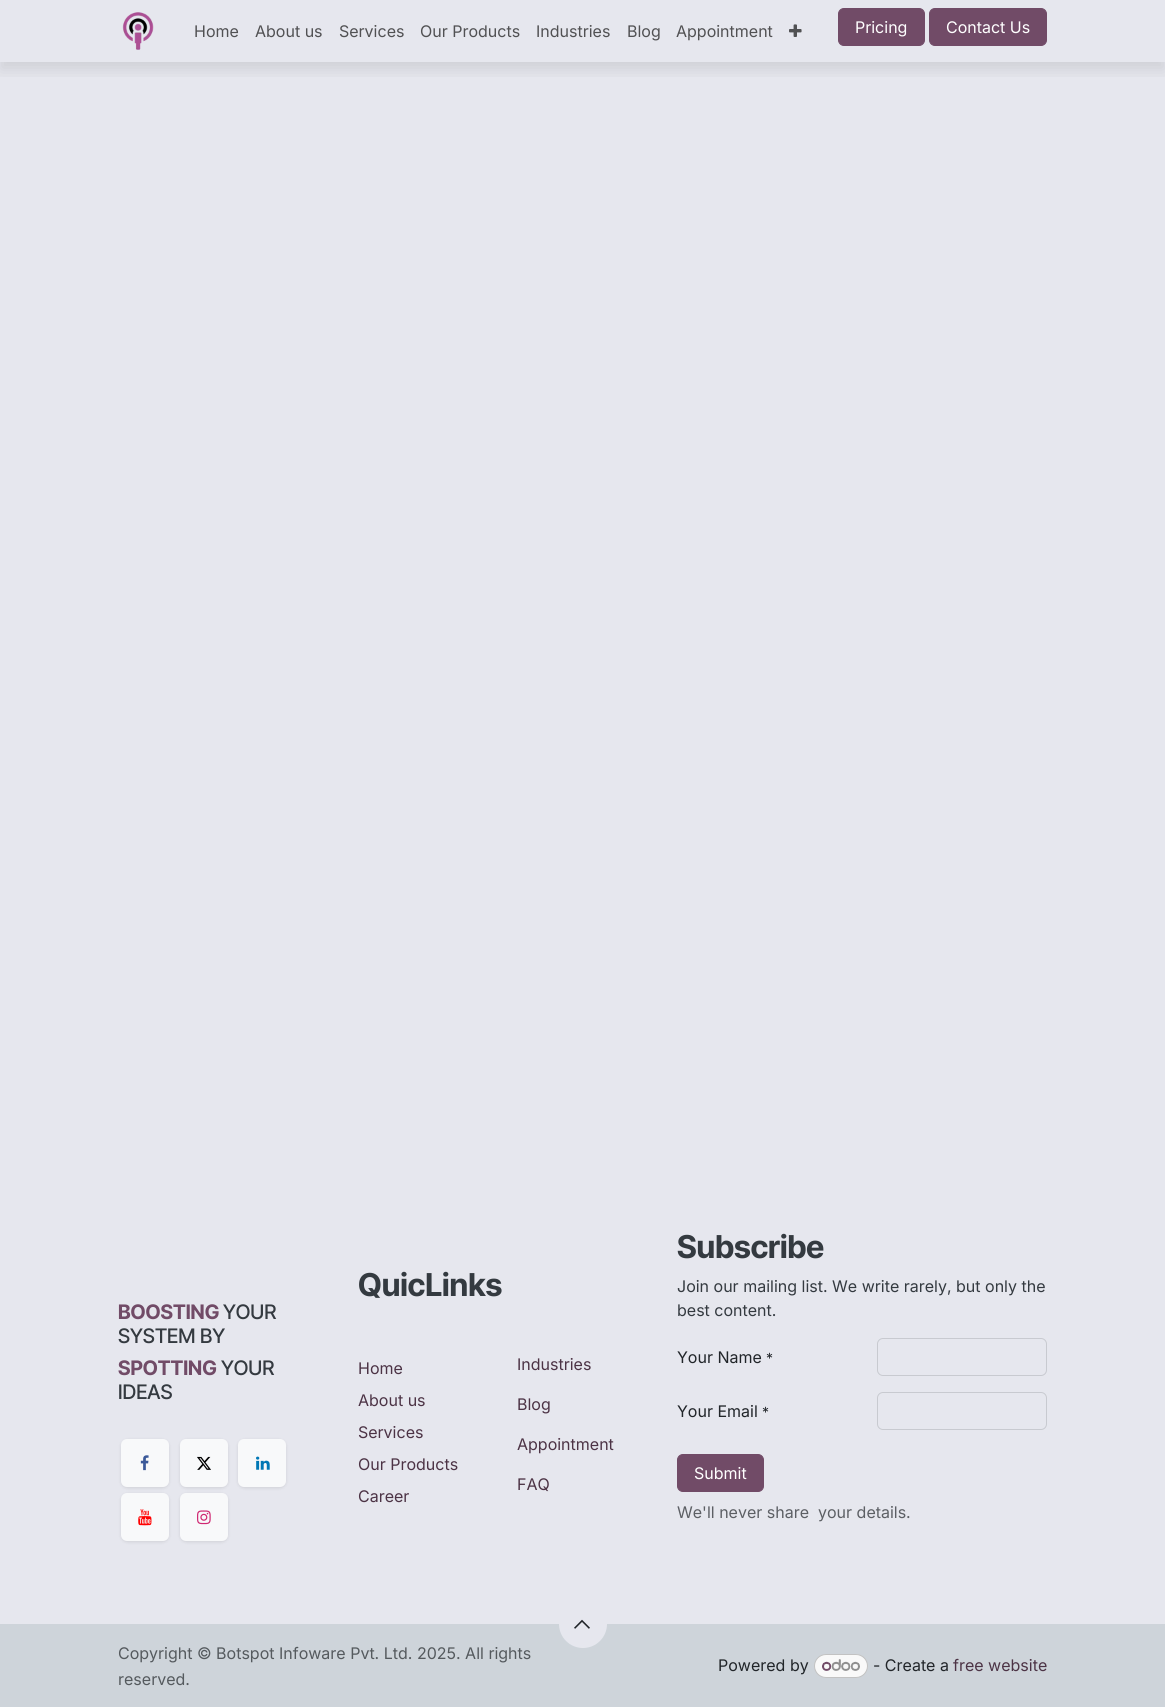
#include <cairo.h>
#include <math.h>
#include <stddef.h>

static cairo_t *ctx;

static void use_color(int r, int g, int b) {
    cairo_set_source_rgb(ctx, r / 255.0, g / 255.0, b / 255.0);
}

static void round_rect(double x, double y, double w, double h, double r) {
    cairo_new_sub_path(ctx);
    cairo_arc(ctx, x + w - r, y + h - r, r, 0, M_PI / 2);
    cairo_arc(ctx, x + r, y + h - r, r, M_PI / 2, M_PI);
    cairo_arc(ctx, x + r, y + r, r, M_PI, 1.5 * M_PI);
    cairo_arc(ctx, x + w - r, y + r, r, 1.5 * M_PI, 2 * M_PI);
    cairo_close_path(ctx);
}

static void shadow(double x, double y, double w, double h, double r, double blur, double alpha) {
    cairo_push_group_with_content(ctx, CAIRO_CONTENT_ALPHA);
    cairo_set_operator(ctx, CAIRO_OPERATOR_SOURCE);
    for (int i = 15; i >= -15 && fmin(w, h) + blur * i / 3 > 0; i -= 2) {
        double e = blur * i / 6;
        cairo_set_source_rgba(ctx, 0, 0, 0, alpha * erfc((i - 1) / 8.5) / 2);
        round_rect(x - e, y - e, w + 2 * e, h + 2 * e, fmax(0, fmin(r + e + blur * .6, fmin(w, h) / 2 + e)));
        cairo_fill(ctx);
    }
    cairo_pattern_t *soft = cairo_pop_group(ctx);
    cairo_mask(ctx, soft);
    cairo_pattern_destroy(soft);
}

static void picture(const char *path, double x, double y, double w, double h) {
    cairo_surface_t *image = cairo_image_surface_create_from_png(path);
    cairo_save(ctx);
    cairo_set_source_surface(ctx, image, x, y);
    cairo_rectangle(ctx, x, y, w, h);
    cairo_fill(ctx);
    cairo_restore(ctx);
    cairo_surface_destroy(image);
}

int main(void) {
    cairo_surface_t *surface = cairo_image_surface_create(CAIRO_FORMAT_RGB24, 1165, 1707);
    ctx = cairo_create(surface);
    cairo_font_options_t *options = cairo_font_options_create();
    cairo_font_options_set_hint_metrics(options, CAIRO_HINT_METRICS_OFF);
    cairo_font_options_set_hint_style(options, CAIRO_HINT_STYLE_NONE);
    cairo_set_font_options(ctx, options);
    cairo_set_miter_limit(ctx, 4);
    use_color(230, 231, 238);
    cairo_paint(ctx);
    cairo_save(ctx);
    cairo_rectangle(ctx, 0, 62, 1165, 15);
    cairo_clip(ctx);
    use_color(0, 0, 0);
    shadow(0, 8, 1165, 62, 0, 8, 0.1);
    cairo_restore(ctx);
    picture("img1.png", 122, 12, 32, 38);
    cairo_select_font_face(ctx, "Inter", CAIRO_FONT_SLANT_NORMAL, CAIRO_FONT_WEIGHT_NORMAL);
    cairo_set_font_size(ctx, 16);
    use_color(81, 81, 83);
    cairo_move_to(ctx, 194, 37);
    cairo_show_text(ctx, "Home");
    cairo_move_to(ctx, 255, 37);
    cairo_show_text(ctx, "About us");
    cairo_move_to(ctx, 339, 37);
    cairo_show_text(ctx, "Services");
    cairo_move_to(ctx, 420, 37);
    cairo_show_text(ctx, "Our Products");
    cairo_move_to(ctx, 536, 37);
    cairo_show_text(ctx, "Industries");
    cairo_move_to(ctx, 627, 37);
    cairo_show_text(ctx, "Blog");
    cairo_move_to(ctx, 676, 37);
    cairo_show_text(ctx, "Appointment");
    picture("img2.png", 789, 24, 13, 13);
    use_color(113, 75, 103);
    round_rect(838.5, 8.5, 86, 37, 5.5);
    cairo_fill_preserve(ctx);
    cairo_set_line_width(ctx, 1);
    cairo_stroke(ctx);
    use_color(255, 255, 255);
    cairo_move_to(ctx, 855, 33);
    cairo_show_text(ctx, "Pricing");
    use_color(113, 75, 103);
    round_rect(929.5, 8.5, 117, 37, 5.5);
    cairo_fill_preserve(ctx);
    cairo_stroke(ctx);
    use_color(255, 255, 255);
    cairo_move_to(ctx, 946, 33);
    cairo_show_text(ctx, "Contact Us");
    cairo_select_font_face(ctx, "Inter Tight", CAIRO_FONT_SLANT_NORMAL, CAIRO_FONT_WEIGHT_BOLD);
    cairo_set_font_size(ctx, 20);
    use_color(113, 75, 103);
    cairo_move_to(ctx, 118, 1319);
    cairo_show_text(ctx, "BOOSTING");
    cairo_select_font_face(ctx, "Inter Tight Medium", CAIRO_FONT_SLANT_NORMAL, CAIRO_FONT_WEIGHT_NORMAL);
    use_color(52, 58, 64);
    cairo_move_to(ctx, 223, 1319);
    cairo_show_text(ctx, "YOUR");
    cairo_move_to(ctx, 118, 1343);
    cairo_show_text(ctx, "SYSTEM BY");
    cairo_select_font_face(ctx, "Inter Tight", CAIRO_FONT_SLANT_NORMAL, CAIRO_FONT_WEIGHT_BOLD);
    use_color(113, 75, 103);
    cairo_move_to(ctx, 118, 1375);
    cairo_show_text(ctx, "SPOTTING");
    cairo_select_font_face(ctx, "Inter Tight Medium", CAIRO_FONT_SLANT_NORMAL, CAIRO_FONT_WEIGHT_NORMAL);
    use_color(52, 58, 64);
    cairo_move_to(ctx, 221, 1375);
    cairo_show_text(ctx, "YOUR");
    cairo_move_to(ctx, 118, 1399);
    cairo_show_text(ctx, "IDEAS");
    use_color(0, 0, 0);
    shadow(121, 1440, 48, 48, 6, 1.5, 0.1);
    use_color(248, 249, 250);
    round_rect(121, 1439, 48, 48, 6);
    cairo_fill(ctx);
    picture("img3.png", 140, 1455, 9, 16);
    use_color(0, 0, 0);
    shadow(180, 1440, 48, 48, 6, 1.5, 0.1);
    use_color(248, 249, 250);
    round_rect(180, 1439, 48, 48, 6);
    cairo_fill(ctx);
    picture("img4.png", 197, 1456, 14, 14);
    use_color(0, 0, 0);
    shadow(238, 1440, 48, 48, 6, 1.5, 0.1);
    use_color(248, 249, 250);
    round_rect(238, 1439, 48, 48, 6);
    cairo_fill(ctx);
    picture("img5.png", 256, 1456, 14, 14);
    use_color(0, 0, 0);
    shadow(121, 1494, 48, 48, 6, 1.5, 0.1);
    use_color(248, 249, 250);
    round_rect(121, 1493, 48, 48, 6);
    cairo_fill(ctx);
    picture("img6.png", 138, 1509, 14, 17);
    use_color(0, 0, 0);
    shadow(180, 1494, 48, 48, 6, 1.5, 0.1);
    use_color(248, 249, 250);
    round_rect(180, 1493, 48, 48, 6);
    cairo_fill(ctx);
    picture("img7.png", 197, 1510, 14, 15);
    cairo_select_font_face(ctx, "Inter Tight", CAIRO_FONT_SLANT_NORMAL, CAIRO_FONT_WEIGHT_BOLD);
    cairo_set_font_size(ctx, 31.5);
    use_color(52, 58, 64);
    cairo_move_to(ctx, 358, 1296);
    cairo_show_text(ctx, "QuicLinks");
    cairo_select_font_face(ctx, "Inter", CAIRO_FONT_SLANT_NORMAL, CAIRO_FONT_WEIGHT_NORMAL);
    cairo_set_font_size(ctx, 16);
    use_color(76, 51, 69);
    cairo_move_to(ctx, 358, 1374);
    cairo_show_text(ctx, "Home");
    cairo_move_to(ctx, 358, 1406);
    cairo_show_text(ctx, "About us");
    cairo_move_to(ctx, 358, 1438);
    cairo_show_text(ctx, "Services");
    cairo_move_to(ctx, 358, 1470);
    cairo_show_text(ctx, "Our Products");
    cairo_move_to(ctx, 358, 1502);
    cairo_show_text(ctx, "Career");
    cairo_move_to(ctx, 517, 1370);
    cairo_show_text(ctx, "Industries");
    cairo_move_to(ctx, 517, 1410);
    cairo_show_text(ctx, "Blog");
    cairo_move_to(ctx, 517, 1450);
    cairo_show_text(ctx, "Appointment");
    cairo_move_to(ctx, 517, 1490);
    cairo_show_text(ctx, "FAQ");
    cairo_select_font_face(ctx, "Inter Tight", CAIRO_FONT_SLANT_NORMAL, CAIRO_FONT_WEIGHT_BOLD);
    cairo_set_font_size(ctx, 31.5);
    use_color(52, 58, 64);
    cairo_move_to(ctx, 677, 1258);
    cairo_show_text(ctx, "Subscribe");
    cairo_select_font_face(ctx, "Inter", CAIRO_FONT_SLANT_NORMAL, CAIRO_FONT_WEIGHT_NORMAL);
    cairo_set_font_size(ctx, 16);
    cairo_move_to(ctx, 677, 1292);
    cairo_show_text(ctx, "Join our mailing list. We write rarely, but only the");
    cairo_move_to(ctx, 677, 1316);
    cairo_show_text(ctx, "best content.");
    use_color(33, 37, 41);
    cairo_move_to(ctx, 677, 1363);
    cairo_show_text(ctx, "Your Name");
    cairo_set_font_size(ctx, 14);
    cairo_move_to(ctx, 766, 1363);
    cairo_show_text(ctx, "*");
    round_rect(877.5, 1338.5, 169, 37, 5.5);
    use_color(200, 202, 208);
    cairo_stroke(ctx);
    cairo_set_font_size(ctx, 16);
    use_color(33, 37, 41);
    cairo_move_to(ctx, 677, 1417);
    cairo_show_text(ctx, "Your Email");
    cairo_set_font_size(ctx, 14);
    cairo_move_to(ctx, 762, 1417);
    cairo_show_text(ctx, "*");
    round_rect(877.5, 1392.5, 169, 37, 5.5);
    use_color(200, 202, 208);
    cairo_stroke(ctx);
    use_color(113, 75, 103);
    round_rect(677.5, 1454.5, 86, 37, 5.5);
    cairo_fill_preserve(ctx);
    cairo_stroke(ctx);
    cairo_set_font_size(ctx, 16);
    use_color(255, 255, 255);
    cairo_move_to(ctx, 694, 1479);
    cairo_show_text(ctx, "Submit");
    use_color(92, 95, 100);
    cairo_move_to(ctx, 677, 1518);
    cairo_show_text(ctx, "We'll never share  your details.");
    use_color(206, 212, 218);
    cairo_rectangle(ctx, 0, 1624, 1165, 83);
    cairo_fill(ctx);
    use_color(230, 231, 238);
    cairo_arc(ctx, 583, 1624, 24, 0, 2 * M_PI);
    cairo_fill(ctx);
    picture("img8.png", 574, 1619, 16, 10);
    use_color(85, 90, 94);
    cairo_move_to(ctx, 118, 1659);
    cairo_show_text(ctx, "Copyright © Botspot Infoware Pvt. Ltd. 2025. All rights");
    cairo_move_to(ctx, 118, 1685);
    cairo_show_text(ctx, "reserved.");
    use_color(33, 37, 41);
    cairo_move_to(ctx, 718, 1671);
    cairo_show_text(ctx, "Powered by");
    use_color(249, 249, 249);
    round_rect(814.5, 1654.5, 53, 23, 11.5);
    cairo_fill_preserve(ctx);
    use_color(194, 194, 194);
    cairo_stroke(ctx);
    picture("img9.png", 822, 1659, 38, 12);
    use_color(33, 37, 41);
    cairo_move_to(ctx, 873, 1671);
    cairo_show_text(ctx, "- Create a");
    use_color(76, 51, 69);
    cairo_move_to(ctx, 953, 1671);
    cairo_show_text(ctx, "free website");
    cairo_surface_write_to_png(surface, "result.png");
    cairo_font_options_destroy(options);
    cairo_destroy(ctx);
    cairo_surface_destroy(surface);
    return 0;
}
